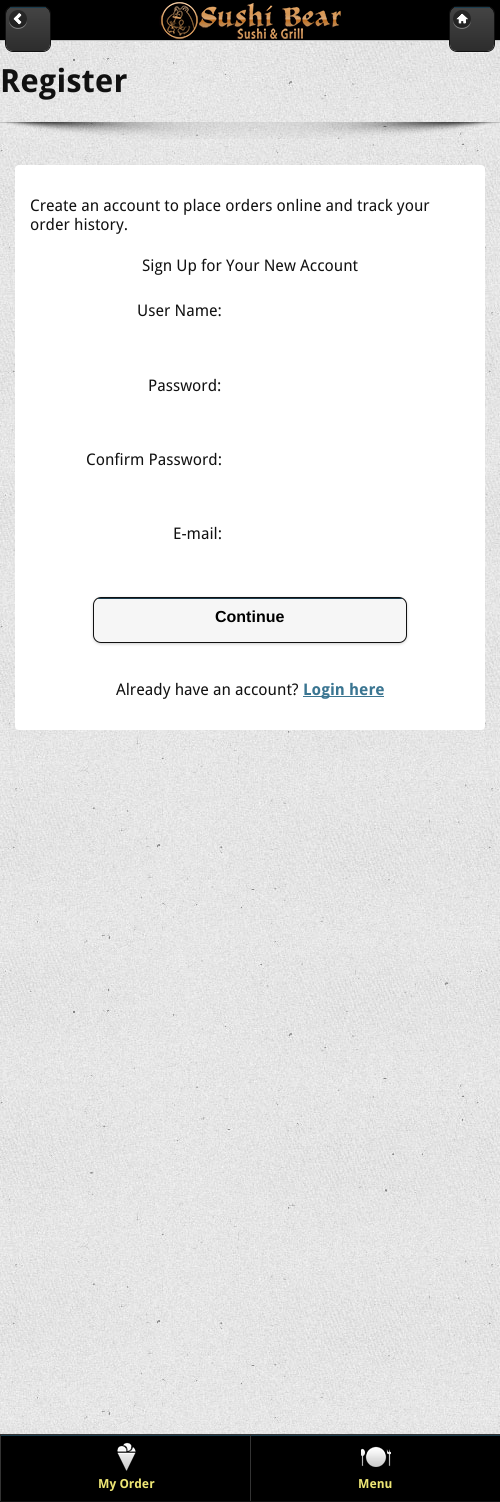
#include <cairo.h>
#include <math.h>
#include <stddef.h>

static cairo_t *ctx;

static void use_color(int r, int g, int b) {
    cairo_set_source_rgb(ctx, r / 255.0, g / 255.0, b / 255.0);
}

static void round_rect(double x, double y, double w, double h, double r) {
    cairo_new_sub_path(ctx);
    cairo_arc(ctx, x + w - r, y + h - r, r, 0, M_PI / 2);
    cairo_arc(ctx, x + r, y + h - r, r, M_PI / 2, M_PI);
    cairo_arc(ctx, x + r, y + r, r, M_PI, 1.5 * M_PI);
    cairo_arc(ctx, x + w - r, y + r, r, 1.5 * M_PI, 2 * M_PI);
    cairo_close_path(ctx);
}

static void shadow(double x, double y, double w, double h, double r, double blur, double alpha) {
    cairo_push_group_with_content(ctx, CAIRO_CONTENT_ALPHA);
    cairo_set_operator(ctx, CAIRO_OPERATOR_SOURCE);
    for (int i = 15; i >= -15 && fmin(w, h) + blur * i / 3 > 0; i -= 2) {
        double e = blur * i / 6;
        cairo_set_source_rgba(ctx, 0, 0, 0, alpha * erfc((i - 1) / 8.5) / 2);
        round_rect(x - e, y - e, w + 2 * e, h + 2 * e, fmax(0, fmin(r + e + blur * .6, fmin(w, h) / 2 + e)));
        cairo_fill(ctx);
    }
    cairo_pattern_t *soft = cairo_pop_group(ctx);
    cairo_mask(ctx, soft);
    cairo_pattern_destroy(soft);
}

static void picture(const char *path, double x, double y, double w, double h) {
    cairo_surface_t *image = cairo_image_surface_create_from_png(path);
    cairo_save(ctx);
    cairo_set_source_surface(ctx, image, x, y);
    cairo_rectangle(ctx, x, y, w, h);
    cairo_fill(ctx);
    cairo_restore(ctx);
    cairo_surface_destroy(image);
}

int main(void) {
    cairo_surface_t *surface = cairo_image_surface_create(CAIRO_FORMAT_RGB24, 500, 1502);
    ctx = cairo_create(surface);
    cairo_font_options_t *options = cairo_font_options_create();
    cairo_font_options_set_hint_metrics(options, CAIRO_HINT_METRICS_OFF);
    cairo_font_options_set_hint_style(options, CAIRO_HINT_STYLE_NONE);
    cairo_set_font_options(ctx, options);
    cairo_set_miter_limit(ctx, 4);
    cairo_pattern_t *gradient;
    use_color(255, 255, 255);
    cairo_paint(ctx);
    picture("img1.png", 0, 41, 500, 1393);
    use_color(0, 0, 0);
    cairo_rectangle(ctx, 0, 0, 500, 40);
    cairo_fill(ctx);
    use_color(191, 192, 192);
    cairo_rectangle(ctx, 0, 40, 500, 1);
    cairo_fill(ctx);
    cairo_set_source_rgba(ctx, 1, 1, 1, 0.3);
    cairo_new_path(ctx);
    cairo_move_to(ctx, 5, 44);
    cairo_curve_to(ctx, 5, 53, 11, 53, 18, 53);
    cairo_line_to(ctx, 38, 53);
    cairo_curve_to(ctx, 45, 53, 51, 53, 51, 44);
    cairo_curve_to(ctx, 51, 48, 47, 52, 43, 52);
    cairo_line_to(ctx, 13, 52);
    cairo_curve_to(ctx, 9, 52, 5, 48, 5, 44);
    cairo_close_path(ctx);
    cairo_fill(ctx);
    gradient = cairo_pattern_create_linear(28, 7, 28, 51);
    cairo_pattern_add_color_stop_rgba(gradient, 0, 0.267, 0.267, 0.267, 1);
    cairo_pattern_add_color_stop_rgba(gradient, 1, 0.176, 0.176, 0.176, 1);
    cairo_set_source(ctx, gradient);
    cairo_pattern_destroy(gradient);
    round_rect(6, 7, 44, 44, 7);
    cairo_fill(ctx);
    round_rect(5.5, 6.5, 45, 45, 7.5);
    use_color(17, 17, 17);
    cairo_set_line_width(ctx, 1);
    cairo_stroke(ctx);
    use_color(26, 61, 79);
    cairo_rectangle(ctx, 10, 7, 36, 1);
    cairo_fill(ctx);
    use_color(136, 136, 136);
    cairo_new_path(ctx);
    cairo_move_to(ctx, 9, 19.5);
    cairo_curve_to(ctx, 8.5, 32, 27.5, 32, 27, 19.5);
    cairo_curve_to(ctx, 26.5, 30.5, 9.5, 30.5, 9, 19.5);
    cairo_close_path(ctx);
    cairo_fill(ctx);
    cairo_set_source_rgba(ctx, 0, 0, 0, 0.4);
    cairo_arc(ctx, 18, 19, 9, 0, 2 * M_PI);
    cairo_fill(ctx);
    picture("img2.png", 13, 13, 9, 12);
    picture("img3.png", 159, 2, 182, 38);
    cairo_set_source_rgba(ctx, 1, 1, 1, 0.3);
    cairo_new_path(ctx);
    cairo_move_to(ctx, 449, 44);
    cairo_curve_to(ctx, 449, 53, 455, 53, 462, 53);
    cairo_line_to(ctx, 482, 53);
    cairo_curve_to(ctx, 489, 53, 495, 53, 495, 44);
    cairo_curve_to(ctx, 495, 48, 491, 52, 487, 52);
    cairo_line_to(ctx, 457, 52);
    cairo_curve_to(ctx, 453, 52, 449, 48, 449, 44);
    cairo_close_path(ctx);
    cairo_fill(ctx);
    gradient = cairo_pattern_create_linear(472, 7, 472, 51);
    cairo_pattern_add_color_stop_rgba(gradient, 0, 0.267, 0.267, 0.267, 1);
    cairo_pattern_add_color_stop_rgba(gradient, 1, 0.176, 0.176, 0.176, 1);
    cairo_set_source(ctx, gradient);
    cairo_pattern_destroy(gradient);
    round_rect(450, 7, 44, 44, 7);
    cairo_fill(ctx);
    round_rect(449.5, 6.5, 45, 45, 7.5);
    use_color(17, 17, 17);
    cairo_stroke(ctx);
    use_color(26, 61, 79);
    cairo_rectangle(ctx, 454, 7, 36, 1);
    cairo_fill(ctx);
    use_color(136, 136, 136);
    cairo_new_path(ctx);
    cairo_move_to(ctx, 453, 19.5);
    cairo_curve_to(ctx, 452.5, 32, 471.5, 32, 471, 19.5);
    cairo_curve_to(ctx, 470.5, 30.5, 453.5, 30.5, 453, 19.5);
    cairo_close_path(ctx);
    cairo_fill(ctx);
    cairo_set_source_rgba(ctx, 0, 0, 0, 0.4);
    cairo_arc(ctx, 462, 19, 9, 0, 2 * M_PI);
    cairo_fill(ctx);
    picture("img4.png", 456, 13, 12, 11);
    cairo_select_font_face(ctx, "Droid Sans", CAIRO_FONT_SLANT_NORMAL, CAIRO_FONT_WEIGHT_BOLD);
    cairo_set_font_size(ctx, 32);
    use_color(17, 17, 17);
    cairo_move_to(ctx, 0, 92);
    cairo_show_text(ctx, "Register");
    picture("img5.png", 0, 122, 500, 17);
    use_color(255, 255, 255);
    round_rect(15, 165, 470, 565, 4);
    cairo_fill(ctx);
    cairo_select_font_face(ctx, "Droid Sans", CAIRO_FONT_SLANT_NORMAL, CAIRO_FONT_WEIGHT_NORMAL);
    cairo_set_font_size(ctx, 16);
    use_color(17, 17, 17);
    cairo_move_to(ctx, 30, 211);
    cairo_show_text(ctx, "Create an account to place orders online and track your");
    cairo_move_to(ctx, 30, 230);
    cairo_show_text(ctx, "order history.");
    cairo_move_to(ctx, 142, 271);
    cairo_show_text(ctx, "Sign Up for Your New Account");
    cairo_move_to(ctx, 137, 316);
    cairo_show_text(ctx, "User Name:");
    cairo_move_to(ctx, 148, 391);
    cairo_show_text(ctx, "Password:");
    cairo_move_to(ctx, 86, 465);
    cairo_show_text(ctx, "Confirm Password:");
    cairo_move_to(ctx, 173, 539);
    cairo_show_text(ctx, "E-mail:");
    use_color(0, 0, 0);
    shadow(93, 598, 314, 46, 8, 1.5, 0.2);
    use_color(246, 246, 246);
    round_rect(93.5, 597.5, 313, 45, 7.5);
    cairo_fill_preserve(ctx);
    use_color(17, 17, 17);
    cairo_stroke(ctx);
    use_color(26, 61, 79);
    cairo_rectangle(ctx, 98, 598, 304, 1);
    cairo_fill(ctx);
    cairo_select_font_face(ctx, "Liberation Sans", CAIRO_FONT_SLANT_NORMAL, CAIRO_FONT_WEIGHT_BOLD);
    use_color(0, 0, 0);
    cairo_move_to(ctx, 215, 622);
    cairo_show_text(ctx, "Continue");
    cairo_select_font_face(ctx, "Droid Sans", CAIRO_FONT_SLANT_NORMAL, CAIRO_FONT_WEIGHT_NORMAL);
    use_color(17, 17, 17);
    cairo_move_to(ctx, 116, 695);
    cairo_show_text(ctx, "Already have an account?");
    use_color(58, 117, 145);
    cairo_rectangle(ctx, 303, 696, 81, 1);
    cairo_fill(ctx);
    cairo_select_font_face(ctx, "Droid Sans", CAIRO_FONT_SLANT_NORMAL, CAIRO_FONT_WEIGHT_BOLD);
    cairo_move_to(ctx, 303, 695);
    cairo_show_text(ctx, "Login here");
    gradient = cairo_pattern_create_linear(250, 1435, 250, 1502);
    cairo_pattern_add_color_stop_rgba(gradient, 0, 0.235, 0.235, 0.235, 1);
    cairo_pattern_add_color_stop_rgba(gradient, 1, 0.067, 0.067, 0.067, 1);
    cairo_set_source(ctx, gradient);
    cairo_pattern_destroy(gradient);
    cairo_rectangle(ctx, 0, 1501, 500, 1);
    cairo_fill(ctx);
    use_color(51, 51, 51);
    cairo_rectangle(ctx, 0, 1434, 500, 1);
    cairo_fill(ctx);
    use_color(0, 0, 0);
    cairo_rectangle(ctx, 1, 1436, 249, 65);
    cairo_fill(ctx);
    use_color(51, 51, 51);
    cairo_rectangle(ctx, 0, 1435, 1, 66);
    cairo_fill(ctx);
    use_color(26, 61, 79);
    cairo_rectangle(ctx, 1, 1435, 499, 1);
    cairo_fill(ctx);
    picture("img6.png", 117, 1442, 19, 29);
    cairo_set_font_size(ctx, 12.5);
    use_color(237, 229, 116);
    cairo_move_to(ctx, 98, 1488);
    cairo_show_text(ctx, "My Order");
    use_color(0, 0, 0);
    cairo_rectangle(ctx, 251, 1436, 249, 65);
    cairo_fill(ctx);
    use_color(51, 51, 51);
    cairo_rectangle(ctx, 250, 1435, 1, 66);
    cairo_fill(ctx);
    picture("img7.png", 361, 1446, 30, 21);
    use_color(237, 229, 116);
    cairo_move_to(ctx, 358, 1488);
    cairo_show_text(ctx, "Menu");
    cairo_surface_write_to_png(surface, "result.png");
    cairo_font_options_destroy(options);
    cairo_destroy(ctx);
    cairo_surface_destroy(surface);
    return 0;
}
